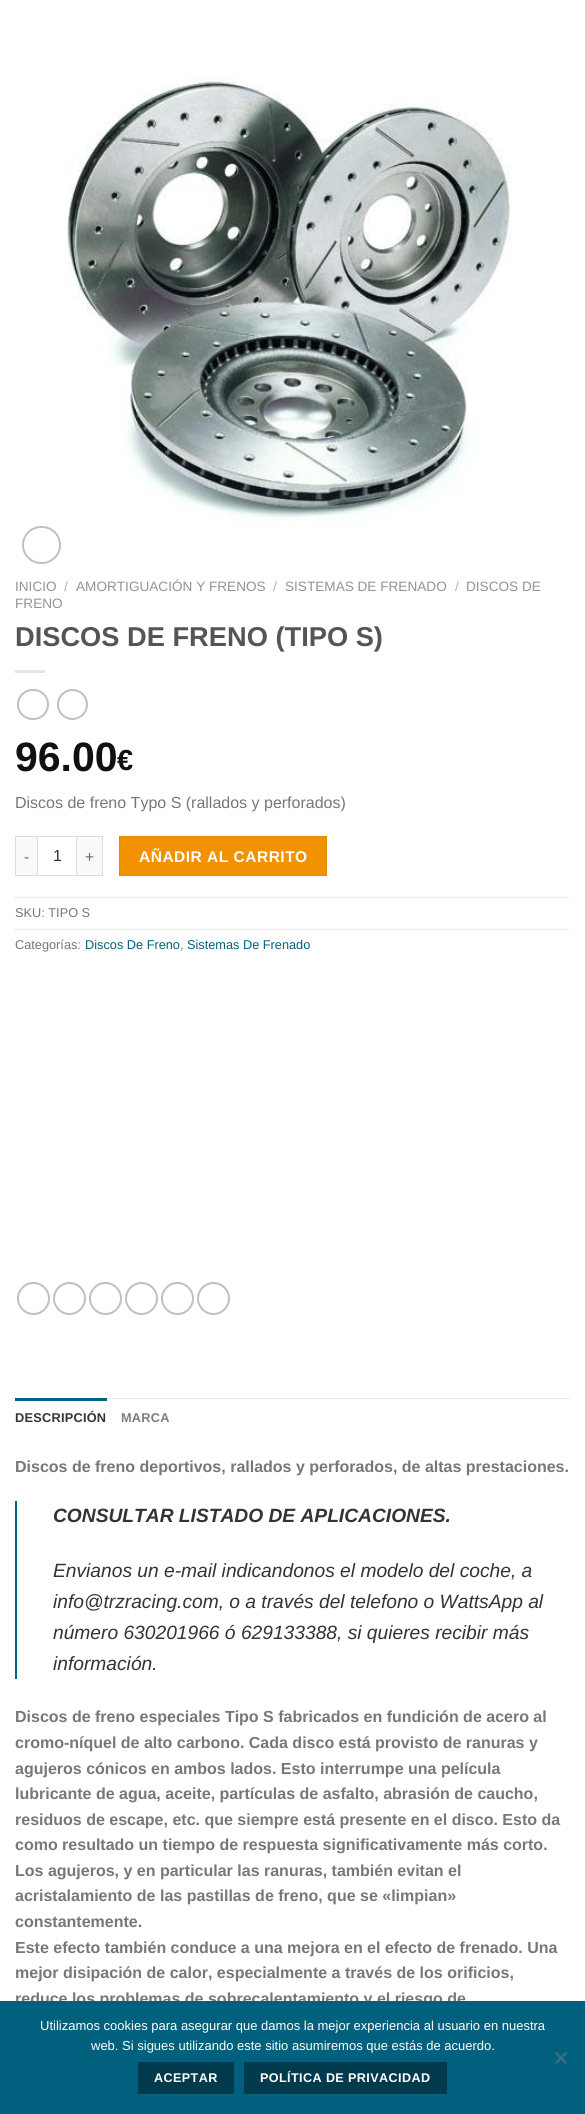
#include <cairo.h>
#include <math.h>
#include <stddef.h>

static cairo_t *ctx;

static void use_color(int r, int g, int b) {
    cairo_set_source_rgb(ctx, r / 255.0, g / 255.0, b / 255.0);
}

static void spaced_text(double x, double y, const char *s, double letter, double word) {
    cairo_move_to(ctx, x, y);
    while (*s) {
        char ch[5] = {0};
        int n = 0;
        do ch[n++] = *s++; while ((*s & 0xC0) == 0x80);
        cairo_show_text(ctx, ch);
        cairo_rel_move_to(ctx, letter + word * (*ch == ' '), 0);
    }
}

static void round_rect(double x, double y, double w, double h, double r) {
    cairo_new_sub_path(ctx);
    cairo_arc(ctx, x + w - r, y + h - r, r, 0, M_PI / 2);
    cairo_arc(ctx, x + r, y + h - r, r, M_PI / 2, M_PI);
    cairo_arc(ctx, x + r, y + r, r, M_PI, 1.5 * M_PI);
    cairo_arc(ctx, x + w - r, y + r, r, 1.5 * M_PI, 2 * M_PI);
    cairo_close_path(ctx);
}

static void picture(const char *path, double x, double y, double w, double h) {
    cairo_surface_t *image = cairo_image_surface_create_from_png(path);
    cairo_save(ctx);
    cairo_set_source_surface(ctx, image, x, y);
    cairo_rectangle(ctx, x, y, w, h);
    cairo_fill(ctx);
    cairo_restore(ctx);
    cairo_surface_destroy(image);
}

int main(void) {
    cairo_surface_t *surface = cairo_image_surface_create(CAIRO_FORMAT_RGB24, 585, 2114);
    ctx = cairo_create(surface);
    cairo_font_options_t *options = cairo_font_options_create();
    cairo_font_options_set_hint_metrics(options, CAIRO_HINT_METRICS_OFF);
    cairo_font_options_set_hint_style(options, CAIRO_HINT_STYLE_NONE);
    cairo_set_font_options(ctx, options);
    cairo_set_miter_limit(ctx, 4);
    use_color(255, 255, 255);
    cairo_paint(ctx);
    picture("img1.png", 67, 76, 445, 448);
    round_rect(23, 527, 37, 36, 18);
    use_color(192, 192, 192);
    cairo_stroke(ctx);
    cairo_select_font_face(ctx, "Liberation Sans", CAIRO_FONT_SLANT_NORMAL, CAIRO_FONT_WEIGHT_NORMAL);
    cairo_set_font_size(ctx, 13.6);
    use_color(148, 148, 148);
    cairo_move_to(ctx, 15, 591);
    cairo_show_text(ctx, "INICIO");
    use_color(178, 178, 178);
    cairo_move_to(ctx, 64, 591);
    cairo_show_text(ctx, "/");
    use_color(148, 148, 148);
    cairo_move_to(ctx, 76, 591);
    cairo_show_text(ctx, "AMORTIGUACIÓN Y FRENOS");
    use_color(178, 178, 178);
    cairo_move_to(ctx, 273, 591);
    cairo_show_text(ctx, "/");
    use_color(148, 148, 148);
    cairo_move_to(ctx, 285, 591);
    cairo_show_text(ctx, "SISTEMAS DE FRENADO");
    use_color(178, 178, 178);
    cairo_move_to(ctx, 455, 591);
    cairo_show_text(ctx, "/");
    use_color(148, 148, 148);
    cairo_move_to(ctx, 466, 591);
    cairo_show_text(ctx, "DISCOS DE");
    cairo_move_to(ctx, 15, 608);
    cairo_show_text(ctx, "FRENO");
    cairo_select_font_face(ctx, "Liberation Sans", CAIRO_FONT_SLANT_NORMAL, CAIRO_FONT_WEIGHT_BOLD);
    cairo_set_font_size(ctx, 27.25);
    use_color(85, 85, 85);
    cairo_move_to(ctx, 15, 646);
    cairo_show_text(ctx, "DISCOS DE FRENO (TIPO S)");
    use_color(230, 230, 230);
    cairo_rectangle(ctx, 15, 670, 30, 3);
    cairo_fill(ctx);
    round_rect(18, 690, 30, 29, 14.5);
    use_color(192, 192, 192);
    cairo_stroke(ctx);
    cairo_arc(ctx, 72.5, 704.5, 14.5, 0, 2 * M_PI);
    cairo_stroke(ctx);
    cairo_set_font_size(ctx, 41);
    use_color(17, 17, 17);
    cairo_move_to(ctx, 15, 771);
    cairo_show_text(ctx, "96.00");
    cairo_set_font_size(ctx, 29);
    cairo_move_to(ctx, 117, 770);
    cairo_show_text(ctx, "€");
    cairo_select_font_face(ctx, "Liberation Sans", CAIRO_FONT_SLANT_NORMAL, CAIRO_FONT_WEIGHT_NORMAL);
    cairo_set_font_size(ctx, 16);
    use_color(119, 119, 119);
    cairo_move_to(ctx, 15, 808);
    cairo_show_text(ctx, "Discos de freno Typo S (rallados y perforados)");
    use_color(249, 249, 249);
    cairo_rectangle(ctx, 16, 837, 21, 38);
    cairo_fill(ctx);
    use_color(221, 221, 221);
    cairo_rectangle(ctx, 15, 836, 22, 1);
    cairo_fill(ctx);
    cairo_rectangle(ctx, 15, 875, 22, 1);
    cairo_fill(ctx);
    cairo_rectangle(ctx, 15, 836, 1, 40);
    cairo_fill(ctx);
    cairo_set_font_size(ctx, 15.5);
    use_color(102, 102, 102);
    spaced_text(24, 862, "-", 0.5, 0);
    cairo_rectangle(ctx, 37.5, 836.5, 39, 39);
    use_color(221, 221, 221);
    cairo_set_line_width(ctx, 1);
    cairo_stroke(ctx);
    cairo_set_font_size(ctx, 16);
    use_color(51, 51, 51);
    cairo_move_to(ctx, 53, 861);
    cairo_show_text(ctx, "1");
    use_color(249, 249, 249);
    cairo_rectangle(ctx, 77, 837, 25, 38);
    cairo_fill(ctx);
    use_color(221, 221, 221);
    cairo_rectangle(ctx, 77, 836, 26, 1);
    cairo_fill(ctx);
    cairo_rectangle(ctx, 102, 836, 1, 40);
    cairo_fill(ctx);
    cairo_rectangle(ctx, 77, 875, 26, 1);
    cairo_fill(ctx);
    cairo_set_font_size(ctx, 15.5);
    use_color(102, 102, 102);
    spaced_text(85, 862, "+", 0.5, 0);
    use_color(242, 146, 0);
    cairo_rectangle(ctx, 119.5, 836.5, 207, 39);
    cairo_fill_preserve(ctx);
    use_color(230, 139, 0);
    cairo_stroke(ctx);
    cairo_select_font_face(ctx, "Liberation Sans", CAIRO_FONT_SLANT_NORMAL, CAIRO_FONT_WEIGHT_BOLD);
    use_color(255, 255, 255);
    spaced_text(139, 862, "AÑADIR AL CARRITO", 0.5, 0);
    cairo_new_path(ctx);
    cairo_move_to(ctx, 15, 897.5);
    cairo_line_to(ctx, 570, 897.5);
    use_color(221, 221, 221);
    cairo_set_dash(ctx, (double[]){1, 1}, 2, 0);
    cairo_stroke(ctx);
    cairo_select_font_face(ctx, "Liberation Sans", CAIRO_FONT_SLANT_NORMAL, CAIRO_FONT_WEIGHT_NORMAL);
    cairo_set_font_size(ctx, 12.75);
    use_color(119, 119, 119);
    cairo_move_to(ctx, 15, 917);
    cairo_show_text(ctx, "SKU: TIPO S");
    cairo_new_path(ctx);
    cairo_move_to(ctx, 15, 929.5);
    cairo_line_to(ctx, 570, 929.5);
    use_color(221, 221, 221);
    cairo_stroke(ctx);
    use_color(119, 119, 119);
    cairo_move_to(ctx, 15, 949);
    cairo_show_text(ctx, "Categorías:");
    use_color(0, 96, 125);
    cairo_move_to(ctx, 85, 949);
    cairo_show_text(ctx, "Discos De Freno");
    use_color(119, 119, 119);
    cairo_move_to(ctx, 180, 949);
    cairo_show_text(ctx, ",");
    use_color(0, 96, 125);
    cairo_move_to(ctx, 187, 949);
    cairo_show_text(ctx, "Sistemas De Frenado");
    cairo_new_path(ctx);
    cairo_arc(ctx, 33.5, 1298.5, 15.5, 0, 2 * M_PI);
    use_color(192, 192, 192);
    cairo_set_line_width(ctx, 2);
    cairo_set_dash(ctx, NULL, 0, 0);
    cairo_stroke(ctx);
    cairo_arc(ctx, 69.5, 1298.5, 15.5, 0, 2 * M_PI);
    cairo_stroke(ctx);
    cairo_arc(ctx, 105.5, 1298.5, 15.5, 0, 2 * M_PI);
    cairo_stroke(ctx);
    cairo_arc(ctx, 141.5, 1298.5, 15.5, 0, 2 * M_PI);
    cairo_stroke(ctx);
    cairo_arc(ctx, 177.5, 1298.5, 15.5, 0, 2 * M_PI);
    cairo_stroke(ctx);
    cairo_arc(ctx, 213.5, 1298.5, 15.5, 0, 2 * M_PI);
    cairo_stroke(ctx);
    use_color(236, 236, 236);
    cairo_rectangle(ctx, 107, 1398, 463, 1);
    cairo_fill(ctx);
    use_color(0, 99, 130);
    cairo_rectangle(ctx, 15, 1398, 92, 3);
    cairo_fill(ctx);
    cairo_select_font_face(ctx, "Liberation Sans", CAIRO_FONT_SLANT_NORMAL, CAIRO_FONT_WEIGHT_BOLD);
    use_color(51, 51, 51);
    spaced_text(15, 1422, "DESCRIPCIÓN", 0.25, 0);
    use_color(125, 125, 125);
    spaced_text(121, 1422, "MARCA", 0.25, 0);
    cairo_set_font_size(ctx, 16);
    use_color(119, 119, 119);
    cairo_move_to(ctx, 15, 1472);
    cairo_show_text(ctx, "Discos de freno deportivos, rallados y perforados, de altas prestaciones.");
    use_color(0, 99, 130);
    cairo_rectangle(ctx, 15, 1501, 2, 178);
    cairo_fill(ctx);
    cairo_select_font_face(ctx, "Liberation Sans", CAIRO_FONT_SLANT_ITALIC, CAIRO_FONT_WEIGHT_BOLD);
    cairo_set_font_size(ctx, 19.2);
    use_color(51, 51, 51);
    cairo_move_to(ctx, 53, 1522);
    cairo_show_text(ctx, "CONSULTAR LISTADO DE APLICACIONES.");
    cairo_select_font_face(ctx, "Liberation Sans", CAIRO_FONT_SLANT_ITALIC, CAIRO_FONT_WEIGHT_NORMAL);
    cairo_move_to(ctx, 53, 1577);
    cairo_show_text(ctx, "Envianos un e-mail indicandonos el modelo del coche, a");
    cairo_move_to(ctx, 53, 1608);
    cairo_show_text(ctx, "info@trzracing.com, o a través del telefono o WattsApp al");
    cairo_move_to(ctx, 53, 1639);
    cairo_show_text(ctx, "número 630201966 ó 629133388, si quieres recibir más");
    cairo_move_to(ctx, 53, 1670);
    cairo_show_text(ctx, "información.");
    cairo_select_font_face(ctx, "Liberation Sans", CAIRO_FONT_SLANT_NORMAL, CAIRO_FONT_WEIGHT_BOLD);
    cairo_set_font_size(ctx, 16);
    use_color(119, 119, 119);
    cairo_move_to(ctx, 15, 1722);
    cairo_show_text(ctx, "Discos de freno especiales Tipo S fabricados en fundición de acero al");
    cairo_move_to(ctx, 15, 1748);
    cairo_show_text(ctx, "cromo-níquel de alto carbono. Cada disco está provisto de ranuras y");
    cairo_move_to(ctx, 15, 1774);
    cairo_show_text(ctx, "agujeros cónicos en ambos lados. Esto interrumpe una película");
    cairo_move_to(ctx, 15, 1799);
    cairo_show_text(ctx, "lubricante de agua, aceite, partículas de asfalto, abrasión de caucho,");
    cairo_move_to(ctx, 15, 1825);
    cairo_show_text(ctx, "residuos de escape, etc. que siempre está presente en el disco. Esto da");
    cairo_move_to(ctx, 15, 1850);
    cairo_show_text(ctx, "como resultado un tiempo de respuesta significativamente más corto.");
    cairo_move_to(ctx, 15, 1876);
    cairo_show_text(ctx, "Los agujeros, y en particular las ranuras, también evitan el");
    cairo_move_to(ctx, 15, 1901);
    cairo_show_text(ctx, "acristalamiento de las pastillas de freno, que se «limpian»");
    cairo_move_to(ctx, 15, 1927);
    cairo_show_text(ctx, "constantemente.");
    cairo_move_to(ctx, 15, 1953);
    cairo_show_text(ctx, "Este efecto también conduce a una mejora en el efecto de frenado. Una");
    cairo_move_to(ctx, 15, 1978);
    cairo_show_text(ctx, "mejor disipación de calor, especialmente a través de los orificios,");
    cairo_move_to(ctx, 15, 2004);
    cairo_show_text(ctx, "reduce los problemas de sobrecalentamiento y el riesgo de");
    use_color(0, 96, 125);
    cairo_rectangle(ctx, 0, 2001, 585, 113);
    cairo_fill(ctx);
    cairo_select_font_face(ctx, "Liberation Sans", CAIRO_FONT_SLANT_NORMAL, CAIRO_FONT_WEIGHT_NORMAL);
    cairo_set_font_size(ctx, 13);
    use_color(255, 255, 255);
    cairo_move_to(ctx, 40, 2030);
    cairo_show_text(ctx, "Utilizamos cookies para asegurar que damos la mejor experiencia al usuario en nuestra");
    cairo_move_to(ctx, 91, 2050);
    cairo_show_text(ctx, "web. Si sigues utilizando este sitio asumiremos que estás de acuerdo.");
    use_color(64, 112, 127);
    cairo_new_path(ctx);
    cairo_move_to(ctx, 565.5, 2052);
    cairo_line_to(ctx, 567, 2053.5);
    cairo_line_to(ctx, 556.5, 2064);
    cairo_line_to(ctx, 555, 2062.5);
    cairo_close_path(ctx);
    cairo_fill(ctx);
    cairo_new_path(ctx);
    cairo_move_to(ctx, 555, 2053.5);
    cairo_line_to(ctx, 556.5, 2052);
    cairo_line_to(ctx, 567, 2062.5);
    cairo_line_to(ctx, 565.5, 2064);
    cairo_close_path(ctx);
    cairo_fill(ctx);
    use_color(0, 58, 76);
    cairo_rectangle(ctx, 138, 2062, 96, 32);
    cairo_fill(ctx);
    cairo_select_font_face(ctx, "Liberation Sans", CAIRO_FONT_SLANT_NORMAL, CAIRO_FONT_WEIGHT_BOLD);
    cairo_set_font_size(ctx, 12.6);
    use_color(255, 255, 255);
    spaced_text(154, 2082, "ACEPTAR", 0.4, 0);
    use_color(0, 58, 76);
    cairo_rectangle(ctx, 244, 2062, 203, 32);
    cairo_fill(ctx);
    use_color(255, 255, 255);
    spaced_text(260, 2082, "POLÍTICA DE PRIVACIDAD", 0.4, 0);
    cairo_surface_write_to_png(surface, "result.png");
    cairo_font_options_destroy(options);
    cairo_destroy(ctx);
    cairo_surface_destroy(surface);
    return 0;
}
